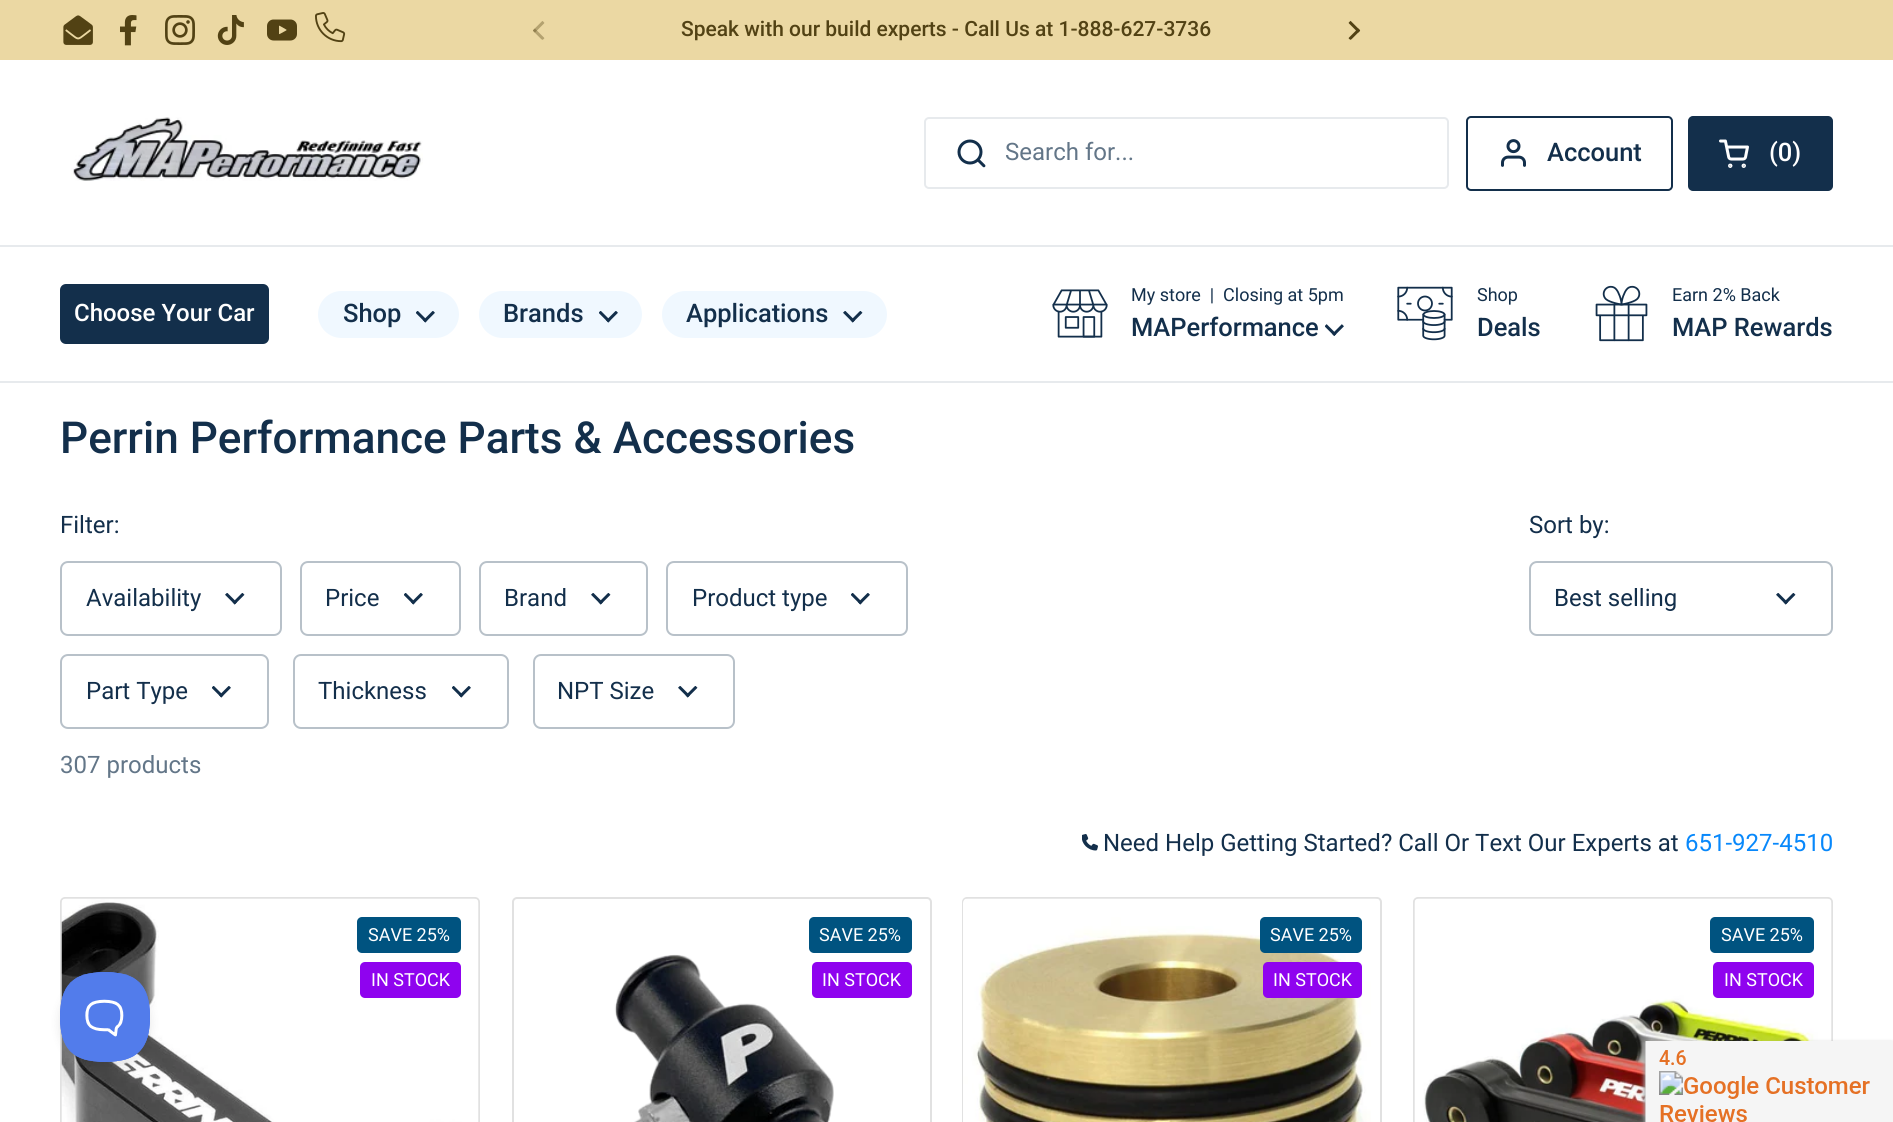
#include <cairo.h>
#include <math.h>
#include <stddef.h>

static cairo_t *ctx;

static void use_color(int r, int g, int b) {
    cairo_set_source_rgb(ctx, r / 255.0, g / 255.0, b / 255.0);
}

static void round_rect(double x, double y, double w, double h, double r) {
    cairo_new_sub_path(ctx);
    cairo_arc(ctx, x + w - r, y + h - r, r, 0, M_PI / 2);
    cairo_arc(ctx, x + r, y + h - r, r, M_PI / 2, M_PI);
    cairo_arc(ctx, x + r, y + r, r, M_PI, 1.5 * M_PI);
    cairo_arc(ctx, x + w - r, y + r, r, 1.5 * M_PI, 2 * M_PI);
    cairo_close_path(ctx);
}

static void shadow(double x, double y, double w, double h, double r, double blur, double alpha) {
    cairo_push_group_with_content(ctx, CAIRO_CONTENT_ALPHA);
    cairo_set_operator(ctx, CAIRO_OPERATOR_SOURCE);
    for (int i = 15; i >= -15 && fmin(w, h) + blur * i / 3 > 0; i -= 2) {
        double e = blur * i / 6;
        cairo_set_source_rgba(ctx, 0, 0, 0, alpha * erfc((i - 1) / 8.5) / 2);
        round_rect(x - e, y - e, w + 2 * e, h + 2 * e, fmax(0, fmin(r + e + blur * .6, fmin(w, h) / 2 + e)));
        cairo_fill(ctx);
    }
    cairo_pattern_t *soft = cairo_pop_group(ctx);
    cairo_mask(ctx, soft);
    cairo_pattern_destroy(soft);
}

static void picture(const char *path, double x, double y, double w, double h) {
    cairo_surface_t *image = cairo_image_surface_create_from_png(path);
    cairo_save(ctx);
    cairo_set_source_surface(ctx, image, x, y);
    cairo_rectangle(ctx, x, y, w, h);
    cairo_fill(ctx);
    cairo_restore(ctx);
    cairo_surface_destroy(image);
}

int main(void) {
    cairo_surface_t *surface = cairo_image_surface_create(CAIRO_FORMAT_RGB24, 1893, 1122);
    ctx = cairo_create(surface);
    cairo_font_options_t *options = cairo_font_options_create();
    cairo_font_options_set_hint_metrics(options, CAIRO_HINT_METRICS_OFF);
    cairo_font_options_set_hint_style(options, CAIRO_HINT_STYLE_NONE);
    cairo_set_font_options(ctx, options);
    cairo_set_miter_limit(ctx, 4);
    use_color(255, 255, 255);
    cairo_paint(ctx);
    use_color(235, 216, 163);
    cairo_rectangle(ctx, 0, 0, 1893, 60);
    cairo_fill(ctx);
    picture("img1.png", 63, 15, 30, 30);
    picture("img2.png", 120, 15, 17, 31);
    picture("img3.png", 165, 15, 30, 30);
    picture("img4.png", 217, 15, 27, 30);
    picture("img5.png", 267, 19, 30, 22);
    picture("img6.png", 315, 12, 31, 31);
    picture("img7.png", 533, 21, 12, 19);
    cairo_select_font_face(ctx, "Roboto Medium", CAIRO_FONT_SLANT_NORMAL, CAIRO_FONT_WEIGHT_NORMAL);
    cairo_set_font_size(ctx, 21);
    use_color(82, 66, 20);
    cairo_move_to(ctx, 681, 36);
    cairo_show_text(ctx, "Speak with our build experts - Call Us at 1-888-627-3736");
    picture("img8.png", 1348, 20, 13, 20);
    use_color(231, 234, 237);
    cairo_rectangle(ctx, 0, 245, 1893, 2);
    cairo_fill(ctx);
    picture("img9.png", 71, 117, 352, 64);
    round_rect(925, 118, 523, 70, 4);
    cairo_stroke(ctx);
    picture("img10.png", 957, 139, 29, 29);
    cairo_select_font_face(ctx, "Roboto", CAIRO_FONT_SLANT_NORMAL, CAIRO_FONT_WEIGHT_NORMAL);
    cairo_set_font_size(ctx, 24);
    use_color(99, 118, 136);
    cairo_move_to(ctx, 1005, 160);
    cairo_show_text(ctx, "Search for...");
    round_rect(1467, 117, 205, 73, 4);
    use_color(19, 47, 75);
    cairo_stroke(ctx);
    picture("img11.png", 1501, 139, 25, 28);
    cairo_select_font_face(ctx, "Roboto Medium", CAIRO_FONT_SLANT_NORMAL, CAIRO_FONT_WEIGHT_NORMAL);
    cairo_set_font_size(ctx, 25.5);
    cairo_move_to(ctx, 1547, 161);
    cairo_show_text(ctx, "Account");
    round_rect(1689, 117, 143, 73, 4);
    cairo_fill_preserve(ctx);
    cairo_stroke(ctx);
    picture("img12.png", 1719, 139, 30, 29);
    use_color(255, 255, 255);
    cairo_move_to(ctx, 1769, 161);
    cairo_show_text(ctx, "(0)");
    use_color(231, 234, 237);
    cairo_rectangle(ctx, 0, 381, 1893, 2);
    cairo_fill(ctx);
    use_color(19, 47, 75);
    round_rect(61, 285, 207, 58, 5);
    cairo_fill_preserve(ctx);
    cairo_stroke(ctx);
    cairo_set_font_size(ctx, 24);
    use_color(255, 255, 255);
    cairo_move_to(ctx, 74, 321);
    cairo_show_text(ctx, "Choose Your Car");
    use_color(240, 248, 255);
    round_rect(318, 291, 141, 47, 23.5);
    cairo_fill(ctx);
    cairo_set_font_size(ctx, 25.5);
    use_color(19, 47, 75);
    cairo_move_to(ctx, 343, 322);
    cairo_show_text(ctx, "Shop");
    picture("img13.png", 416, 311, 19, 12);
    use_color(240, 248, 255);
    round_rect(479, 291, 163, 47, 23.5);
    cairo_fill(ctx);
    use_color(19, 47, 75);
    cairo_move_to(ctx, 503, 322);
    cairo_show_text(ctx, "Brands");
    picture("img13.png", 599, 311, 19, 12);
    use_color(240, 248, 255);
    round_rect(662, 291, 225, 47, 23.5);
    cairo_fill(ctx);
    use_color(19, 47, 75);
    cairo_move_to(ctx, 686, 322);
    cairo_show_text(ctx, "Applications");
    picture("img14.png", 843, 311, 20, 12);
    picture("img15.png", 1052, 289, 56, 49);
    cairo_select_font_face(ctx, "Roboto", CAIRO_FONT_SLANT_NORMAL, CAIRO_FONT_WEIGHT_NORMAL);
    cairo_set_font_size(ctx, 18);
    cairo_move_to(ctx, 1131, 301);
    cairo_show_text(ctx, "My store  |  Closing at 5pm");
    cairo_select_font_face(ctx, "Roboto Medium", CAIRO_FONT_SLANT_NORMAL, CAIRO_FONT_WEIGHT_NORMAL);
    cairo_set_font_size(ctx, 25.5);
    cairo_move_to(ctx, 1131, 336);
    cairo_show_text(ctx, "MAPerformance");
    picture("img16.png", 1325, 324, 19, 12);
    picture("img17.png", 1397, 286, 56, 55);
    cairo_select_font_face(ctx, "Roboto", CAIRO_FONT_SLANT_NORMAL, CAIRO_FONT_WEIGHT_NORMAL);
    cairo_set_font_size(ctx, 18);
    cairo_move_to(ctx, 1477, 301);
    cairo_show_text(ctx, "Shop");
    cairo_select_font_face(ctx, "Roboto Medium", CAIRO_FONT_SLANT_NORMAL, CAIRO_FONT_WEIGHT_NORMAL);
    cairo_set_font_size(ctx, 25.5);
    cairo_move_to(ctx, 1477, 336);
    cairo_show_text(ctx, "Deals");
    picture("img18.png", 1595, 285, 53, 57);
    cairo_select_font_face(ctx, "Roboto", CAIRO_FONT_SLANT_NORMAL, CAIRO_FONT_WEIGHT_NORMAL);
    cairo_set_font_size(ctx, 18);
    cairo_move_to(ctx, 1672, 301);
    cairo_show_text(ctx, "Earn 2% Back");
    cairo_select_font_face(ctx, "Roboto Medium", CAIRO_FONT_SLANT_NORMAL, CAIRO_FONT_WEIGHT_NORMAL);
    cairo_set_font_size(ctx, 25.5);
    cairo_move_to(ctx, 1672, 336);
    cairo_show_text(ctx, "MAP Rewards");
    cairo_set_font_size(ctx, 44.1);
    cairo_move_to(ctx, 60, 453);
    cairo_show_text(ctx, "Perrin Performance Parts & Accessories");
    cairo_select_font_face(ctx, "Roboto", CAIRO_FONT_SLANT_NORMAL, CAIRO_FONT_WEIGHT_NORMAL);
    cairo_set_font_size(ctx, 24);
    cairo_move_to(ctx, 60, 533);
    cairo_show_text(ctx, "Filter:");
    picture("img19.png", 225, 593, 20, 12);
    round_rect(61, 562, 220, 73, 7);
    use_color(184, 193, 201);
    cairo_stroke(ctx);
    use_color(19, 47, 75);
    cairo_move_to(ctx, 86, 606);
    cairo_show_text(ctx, "Availability");
    picture("img20.png", 404, 593, 19, 12);
    round_rect(301, 562, 159, 73, 7);
    use_color(184, 193, 201);
    cairo_stroke(ctx);
    use_color(19, 47, 75);
    cairo_move_to(ctx, 325, 606);
    cairo_show_text(ctx, "Price");
    picture("img19.png", 591, 593, 20, 12);
    round_rect(480, 562, 167, 73, 7);
    use_color(184, 193, 201);
    cairo_stroke(ctx);
    use_color(19, 47, 75);
    cairo_move_to(ctx, 504, 606);
    cairo_show_text(ctx, "Brand");
    picture("img20.png", 851, 593, 19, 12);
    round_rect(667, 562, 240, 73, 7);
    use_color(184, 193, 201);
    cairo_stroke(ctx);
    use_color(19, 47, 75);
    cairo_move_to(ctx, 692, 606);
    cairo_show_text(ctx, "Product type");
    picture("img20.png", 212, 686, 19, 12);
    round_rect(61, 655, 207, 73, 7);
    use_color(184, 193, 201);
    cairo_stroke(ctx);
    use_color(19, 47, 75);
    cairo_move_to(ctx, 86, 699);
    cairo_show_text(ctx, "Part Type");
    picture("img20.png", 452, 686, 19, 12);
    round_rect(294, 655, 214, 73, 7);
    use_color(184, 193, 201);
    cairo_stroke(ctx);
    use_color(19, 47, 75);
    cairo_move_to(ctx, 318, 699);
    cairo_show_text(ctx, "Thickness");
    picture("img19.png", 678, 686, 20, 12);
    round_rect(534, 655, 200, 73, 7);
    use_color(184, 193, 201);
    cairo_stroke(ctx);
    use_color(19, 47, 75);
    cairo_move_to(ctx, 557, 699);
    cairo_show_text(ctx, "NPT Size");
    cairo_move_to(ctx, 1529, 533);
    cairo_show_text(ctx, "Sort by:");
    picture("img19.png", 1776, 593, 20, 12);
    round_rect(1530, 562, 302, 73, 7);
    use_color(184, 193, 201);
    cairo_stroke(ctx);
    use_color(19, 47, 75);
    cairo_move_to(ctx, 1554, 606);
    cairo_show_text(ctx, "Best selling");
    use_color(99, 118, 136);
    cairo_move_to(ctx, 60, 773);
    cairo_show_text(ctx, "307 products");
    picture("img21.png", 1082, 834, 16, 17);
    use_color(19, 47, 75);
    cairo_move_to(ctx, 1103, 851);
    cairo_show_text(ctx, "Need Help Getting Started? Call Or Text Our Experts at");
    use_color(8, 136, 251);
    cairo_move_to(ctx, 1685, 851);
    cairo_show_text(ctx, "651-927-4510");
    round_rect(61, 898, 418, 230, 4);
    use_color(225, 225, 225);
    cairo_stroke(ctx);
    picture("img22.png", 61, 898, 418, 224);
    use_color(0, 83, 128);
    round_rect(357, 917, 104, 36, 5);
    cairo_fill(ctx);
    cairo_set_font_size(ctx, 18);
    use_color(255, 255, 255);
    cairo_move_to(ctx, 368, 941);
    cairo_show_text(ctx, "SAVE 25%");
    use_color(143, 3, 239);
    round_rect(360, 962, 101, 36, 5);
    cairo_fill(ctx);
    use_color(255, 255, 255);
    cairo_move_to(ctx, 371, 986);
    cairo_show_text(ctx, "IN STOCK");
    round_rect(513, 898, 418, 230, 4);
    use_color(225, 225, 225);
    cairo_stroke(ctx);
    picture("img23.png", 614, 954, 220, 168);
    use_color(0, 83, 128);
    round_rect(809, 917, 103, 36, 5);
    cairo_fill(ctx);
    use_color(255, 255, 255);
    cairo_move_to(ctx, 819, 941);
    cairo_show_text(ctx, "SAVE 25%");
    use_color(143, 3, 239);
    round_rect(812, 962, 100, 36, 5);
    cairo_fill(ctx);
    use_color(255, 255, 255);
    cairo_move_to(ctx, 822, 986);
    cairo_show_text(ctx, "IN STOCK");
    round_rect(963, 898, 418, 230, 4);
    use_color(225, 225, 225);
    cairo_stroke(ctx);
    picture("img24.png", 963, 898, 416, 224);
    use_color(0, 83, 128);
    round_rect(1260, 917, 102, 36, 5);
    cairo_fill(ctx);
    use_color(255, 255, 255);
    cairo_move_to(ctx, 1270, 941);
    cairo_show_text(ctx, "SAVE 25%");
    use_color(143, 3, 239);
    round_rect(1263, 962, 99, 36, 5);
    cairo_fill(ctx);
    use_color(255, 255, 255);
    cairo_move_to(ctx, 1273, 986);
    cairo_show_text(ctx, "IN STOCK");
    round_rect(1414, 898, 418, 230, 4);
    use_color(225, 225, 225);
    cairo_stroke(ctx);
    picture("img25.png", 1414, 898, 418, 224);
    use_color(0, 83, 128);
    round_rect(1710, 917, 104, 36, 5);
    cairo_fill(ctx);
    use_color(255, 255, 255);
    cairo_move_to(ctx, 1721, 941);
    cairo_show_text(ctx, "SAVE 25%");
    use_color(143, 3, 239);
    round_rect(1713, 962, 101, 36, 5);
    cairo_fill(ctx);
    use_color(255, 255, 255);
    cairo_move_to(ctx, 1724, 986);
    cairo_show_text(ctx, "IN STOCK");
    use_color(0, 0, 0);
    shadow(60, 978, 90, 90, 45, 5, 0.1);
    picture("img26.png", 60, 972, 90, 90);
    use_color(162, 162, 162);
    shadow(1644, 1043, 248, 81, 0, 2, 1);
    picture("img27.png", 1645, 1041, 248, 81);
    cairo_surface_write_to_png(surface, "result.png");
    cairo_font_options_destroy(options);
    cairo_destroy(ctx);
    cairo_surface_destroy(surface);
    return 0;
}
